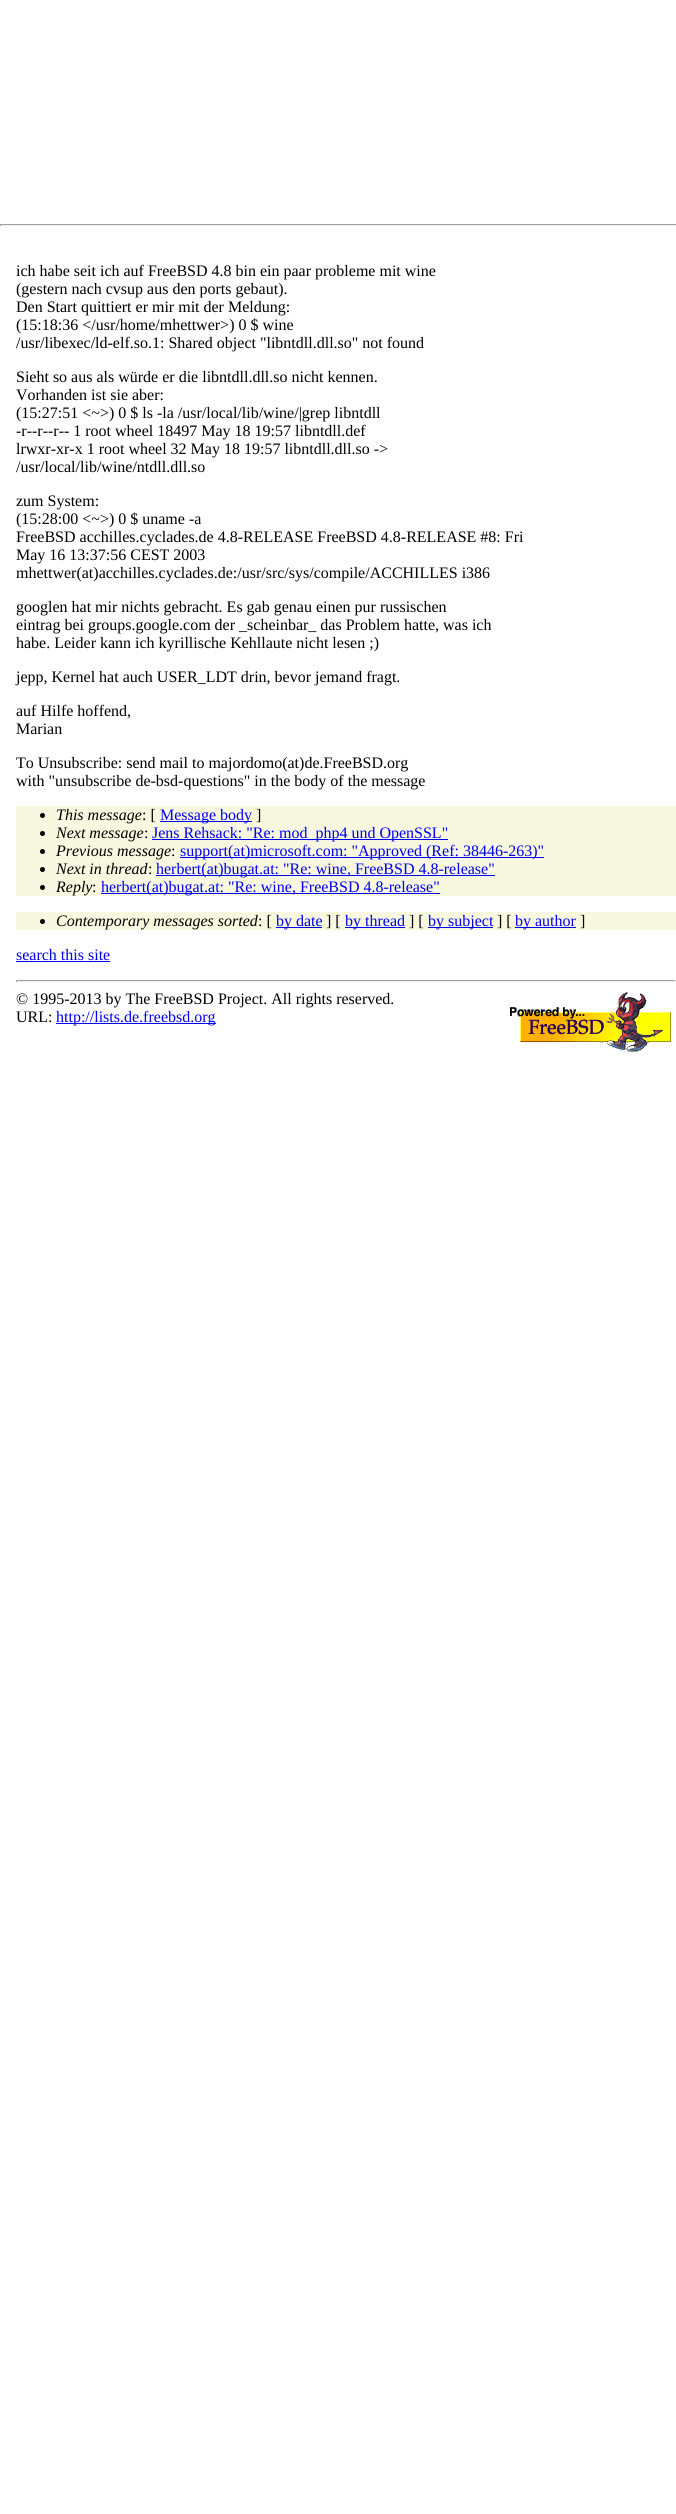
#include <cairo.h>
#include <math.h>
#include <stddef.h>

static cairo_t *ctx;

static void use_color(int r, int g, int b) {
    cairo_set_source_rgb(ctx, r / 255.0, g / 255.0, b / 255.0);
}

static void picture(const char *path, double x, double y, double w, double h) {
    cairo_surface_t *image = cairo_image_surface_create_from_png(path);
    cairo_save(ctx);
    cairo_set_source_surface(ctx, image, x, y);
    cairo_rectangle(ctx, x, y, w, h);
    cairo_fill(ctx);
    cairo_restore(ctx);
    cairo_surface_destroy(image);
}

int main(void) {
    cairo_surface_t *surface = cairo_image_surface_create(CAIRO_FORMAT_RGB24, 676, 2514);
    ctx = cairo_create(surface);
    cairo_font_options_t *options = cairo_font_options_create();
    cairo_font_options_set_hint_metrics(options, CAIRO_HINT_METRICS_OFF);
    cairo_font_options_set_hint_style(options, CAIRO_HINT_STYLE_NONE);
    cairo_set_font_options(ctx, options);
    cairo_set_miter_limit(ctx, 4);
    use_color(255, 255, 255);
    cairo_paint(ctx);
    use_color(159, 159, 159);
    cairo_rectangle(ctx, 0, 224, 676, 1);
    cairo_fill(ctx);
    use_color(238, 238, 238);
    cairo_rectangle(ctx, 0, 225, 676, 1);
    cairo_fill(ctx);
    use_color(159, 159, 159);
    cairo_rectangle(ctx, 0, 224, 1, 2);
    cairo_fill(ctx);
    cairo_select_font_face(ctx, "Liberation Serif", CAIRO_FONT_SLANT_NORMAL, CAIRO_FONT_WEIGHT_NORMAL);
    cairo_set_font_size(ctx, 16);
    use_color(0, 0, 0);
    cairo_move_to(ctx, 16, 276);
    cairo_show_text(ctx, "ich habe seit ich auf FreeBSD 4.8 bin ein paar probleme mit wine");
    cairo_move_to(ctx, 16, 294);
    cairo_show_text(ctx, "(gestern nach cvsup aus den ports gebaut).");
    cairo_move_to(ctx, 16, 312);
    cairo_show_text(ctx, "Den Start quittiert er mir mit der Meldung:");
    cairo_move_to(ctx, 16, 330);
    cairo_show_text(ctx, "(15:18:36 </usr/home/mhettwer>) 0 $ wine");
    cairo_move_to(ctx, 16, 348);
    cairo_show_text(ctx, "/usr/libexec/ld-elf.so.1: Shared object \"libntdll.dll.so\" not found");
    cairo_move_to(ctx, 16, 382);
    cairo_show_text(ctx, "Sieht so aus als würde er die libntdll.dll.so nicht kennen.");
    cairo_move_to(ctx, 16, 400);
    cairo_show_text(ctx, "Vorhanden ist sie aber:");
    cairo_move_to(ctx, 16, 418);
    cairo_show_text(ctx, "(15:27:51 <~>) 0 $ ls -la /usr/local/lib/wine/|grep libntdll");
    cairo_move_to(ctx, 16, 436);
    cairo_show_text(ctx, "-r--r--r-- 1 root wheel 18497 May 18 19:57 libntdll.def");
    cairo_move_to(ctx, 16, 454);
    cairo_show_text(ctx, "lrwxr-xr-x 1 root wheel 32 May 18 19:57 libntdll.dll.so ->");
    cairo_move_to(ctx, 16, 472);
    cairo_show_text(ctx, "/usr/local/lib/wine/ntdll.dll.so");
    cairo_move_to(ctx, 16, 506);
    cairo_show_text(ctx, "zum System:");
    cairo_move_to(ctx, 16, 524);
    cairo_show_text(ctx, "(15:28:00 <~>) 0 $ uname -a");
    cairo_move_to(ctx, 16, 542);
    cairo_show_text(ctx, "FreeBSD acchilles.cyclades.de 4.8-RELEASE FreeBSD 4.8-RELEASE #8: Fri");
    cairo_move_to(ctx, 16, 560);
    cairo_show_text(ctx, "May 16 13:37:56 CEST 2003");
    cairo_move_to(ctx, 16, 578);
    cairo_show_text(ctx, "mhettwer(at)acchilles.cyclades.de:/usr/src/sys/compile/ACCHILLES i386");
    cairo_move_to(ctx, 16, 612);
    cairo_show_text(ctx, "googlen hat mir nichts gebracht. Es gab genau einen pur russischen");
    cairo_move_to(ctx, 16, 630);
    cairo_show_text(ctx, "eintrag bei groups.google.com der _scheinbar_ das Problem hatte, was ich");
    cairo_move_to(ctx, 16, 648);
    cairo_show_text(ctx, "habe. Leider kann ich kyrillische Kehllaute nicht lesen ;)");
    cairo_move_to(ctx, 16, 682);
    cairo_show_text(ctx, "jepp, Kernel hat auch USER_LDT drin, bevor jemand fragt.");
    cairo_move_to(ctx, 16, 716);
    cairo_show_text(ctx, "auf Hilfe hoffend,");
    cairo_move_to(ctx, 16, 734);
    cairo_show_text(ctx, "Marian");
    cairo_move_to(ctx, 16, 768);
    cairo_show_text(ctx, "To Unsubscribe: send mail to majordomo(at)de.FreeBSD.org");
    cairo_move_to(ctx, 16, 786);
    cairo_show_text(ctx, "with \"unsubscribe de-bsd-questions\" in the body of the message");
    use_color(248, 248, 224);
    cairo_rectangle(ctx, 16, 806, 660, 90);
    cairo_fill(ctx);
    use_color(0, 0, 0);
    cairo_arc(ctx, 42.5, 815.5, 2.5, 0, 2 * M_PI);
    cairo_fill(ctx);
    cairo_select_font_face(ctx, "Liberation Serif", CAIRO_FONT_SLANT_ITALIC, CAIRO_FONT_WEIGHT_NORMAL);
    cairo_move_to(ctx, 56, 820);
    cairo_show_text(ctx, "This message");
    cairo_select_font_face(ctx, "Liberation Serif", CAIRO_FONT_SLANT_NORMAL, CAIRO_FONT_WEIGHT_NORMAL);
    cairo_move_to(ctx, 142, 820);
    cairo_show_text(ctx, ": [");
    use_color(0, 0, 238);
    cairo_rectangle(ctx, 160, 821, 92, 1);
    cairo_fill(ctx);
    cairo_move_to(ctx, 160, 820);
    cairo_show_text(ctx, "Message body");
    use_color(0, 0, 0);
    cairo_move_to(ctx, 256, 820);
    cairo_show_text(ctx, "]");
    cairo_new_path(ctx);
    cairo_arc(ctx, 42.5, 833.5, 2.5, 0, 2 * M_PI);
    cairo_fill(ctx);
    cairo_select_font_face(ctx, "Liberation Serif", CAIRO_FONT_SLANT_ITALIC, CAIRO_FONT_WEIGHT_NORMAL);
    cairo_move_to(ctx, 56, 838);
    cairo_show_text(ctx, "Next message");
    cairo_select_font_face(ctx, "Liberation Serif", CAIRO_FONT_SLANT_NORMAL, CAIRO_FONT_WEIGHT_NORMAL);
    cairo_move_to(ctx, 144, 838);
    cairo_show_text(ctx, ":");
    use_color(0, 0, 238);
    cairo_rectangle(ctx, 152, 839, 296, 1);
    cairo_fill(ctx);
    cairo_move_to(ctx, 152, 838);
    cairo_show_text(ctx, "Jens Rehsack: \"Re: mod_php4 und OpenSSL\"");
    use_color(0, 0, 0);
    cairo_new_path(ctx);
    cairo_arc(ctx, 42.5, 851.5, 2.5, 0, 2 * M_PI);
    cairo_fill(ctx);
    cairo_select_font_face(ctx, "Liberation Serif", CAIRO_FONT_SLANT_ITALIC, CAIRO_FONT_WEIGHT_NORMAL);
    cairo_move_to(ctx, 56, 856);
    cairo_show_text(ctx, "Previous message");
    cairo_select_font_face(ctx, "Liberation Serif", CAIRO_FONT_SLANT_NORMAL, CAIRO_FONT_WEIGHT_NORMAL);
    cairo_move_to(ctx, 171, 856);
    cairo_show_text(ctx, ":");
    use_color(0, 0, 238);
    cairo_rectangle(ctx, 180, 857, 364, 1);
    cairo_fill(ctx);
    cairo_move_to(ctx, 180, 856);
    cairo_show_text(ctx, "support(at)microsoft.com: \"Approved (Ref: 38446-263)\"");
    use_color(0, 0, 0);
    cairo_new_path(ctx);
    cairo_arc(ctx, 42.5, 869.5, 2.5, 0, 2 * M_PI);
    cairo_fill(ctx);
    cairo_select_font_face(ctx, "Liberation Serif", CAIRO_FONT_SLANT_ITALIC, CAIRO_FONT_WEIGHT_NORMAL);
    cairo_move_to(ctx, 56, 874);
    cairo_show_text(ctx, "Next in thread");
    cairo_select_font_face(ctx, "Liberation Serif", CAIRO_FONT_SLANT_NORMAL, CAIRO_FONT_WEIGHT_NORMAL);
    cairo_move_to(ctx, 148, 874);
    cairo_show_text(ctx, ":");
    use_color(0, 0, 238);
    cairo_rectangle(ctx, 156, 875, 339, 1);
    cairo_fill(ctx);
    cairo_move_to(ctx, 156, 874);
    cairo_show_text(ctx, "herbert(at)bugat.at: \"Re: wine, FreeBSD 4.8-release\"");
    use_color(0, 0, 0);
    cairo_new_path(ctx);
    cairo_arc(ctx, 42.5, 887.5, 2.5, 0, 2 * M_PI);
    cairo_fill(ctx);
    cairo_select_font_face(ctx, "Liberation Serif", CAIRO_FONT_SLANT_ITALIC, CAIRO_FONT_WEIGHT_NORMAL);
    cairo_move_to(ctx, 56, 892);
    cairo_show_text(ctx, "Reply");
    cairo_select_font_face(ctx, "Liberation Serif", CAIRO_FONT_SLANT_NORMAL, CAIRO_FONT_WEIGHT_NORMAL);
    cairo_move_to(ctx, 92, 892);
    cairo_show_text(ctx, ":");
    use_color(0, 0, 238);
    cairo_rectangle(ctx, 101, 893, 339, 1);
    cairo_fill(ctx);
    cairo_move_to(ctx, 101, 892);
    cairo_show_text(ctx, "herbert(at)bugat.at: \"Re: wine, FreeBSD 4.8-release\"");
    use_color(248, 248, 224);
    cairo_rectangle(ctx, 16, 912, 660, 18);
    cairo_fill(ctx);
    use_color(0, 0, 0);
    cairo_arc(ctx, 42.5, 921.5, 2.5, 0, 2 * M_PI);
    cairo_fill(ctx);
    cairo_select_font_face(ctx, "Liberation Serif", CAIRO_FONT_SLANT_ITALIC, CAIRO_FONT_WEIGHT_NORMAL);
    cairo_move_to(ctx, 56, 926);
    cairo_show_text(ctx, "Contemporary messages sorted");
    cairo_select_font_face(ctx, "Liberation Serif", CAIRO_FONT_SLANT_NORMAL, CAIRO_FONT_WEIGHT_NORMAL);
    cairo_move_to(ctx, 258, 926);
    cairo_show_text(ctx, ": [");
    use_color(0, 0, 238);
    cairo_rectangle(ctx, 276, 927, 46, 1);
    cairo_fill(ctx);
    cairo_move_to(ctx, 276, 926);
    cairo_show_text(ctx, "by date");
    use_color(0, 0, 0);
    cairo_move_to(ctx, 326, 926);
    cairo_show_text(ctx, "] [");
    use_color(0, 0, 238);
    cairo_rectangle(ctx, 345, 927, 60, 1);
    cairo_fill(ctx);
    cairo_move_to(ctx, 345, 926);
    cairo_show_text(ctx, "by thread");
    use_color(0, 0, 0);
    cairo_move_to(ctx, 409, 926);
    cairo_show_text(ctx, "] [");
    use_color(0, 0, 238);
    cairo_rectangle(ctx, 428, 927, 65, 1);
    cairo_fill(ctx);
    cairo_move_to(ctx, 428, 926);
    cairo_show_text(ctx, "by subject");
    use_color(0, 0, 0);
    cairo_move_to(ctx, 497, 926);
    cairo_show_text(ctx, "] [");
    use_color(0, 0, 238);
    cairo_rectangle(ctx, 515, 927, 61, 1);
    cairo_fill(ctx);
    cairo_move_to(ctx, 515, 926);
    cairo_show_text(ctx, "by author");
    use_color(0, 0, 0);
    cairo_move_to(ctx, 580, 926);
    cairo_show_text(ctx, "]");
    use_color(0, 0, 238);
    cairo_move_to(ctx, 16, 960);
    cairo_show_text(ctx, "search this site");
    cairo_rectangle(ctx, 16, 961, 94, 1);
    cairo_fill(ctx);
    use_color(159, 159, 159);
    cairo_rectangle(ctx, 16, 980, 660, 1);
    cairo_fill(ctx);
    use_color(238, 238, 238);
    cairo_rectangle(ctx, 675, 980, 1, 2);
    cairo_fill(ctx);
    cairo_rectangle(ctx, 16, 981, 660, 1);
    cairo_fill(ctx);
    use_color(159, 159, 159);
    cairo_rectangle(ctx, 16, 980, 1, 2);
    cairo_fill(ctx);
    use_color(0, 0, 0);
    cairo_move_to(ctx, 16, 1004);
    cairo_show_text(ctx, "© 1995-2013 by The FreeBSD Project. All rights reserved.");
    picture("img1.png", 510, 992, 161, 60);
    cairo_move_to(ctx, 16, 1022);
    cairo_show_text(ctx, "URL:");
    use_color(0, 0, 238);
    cairo_rectangle(ctx, 56, 1023, 160, 1);
    cairo_fill(ctx);
    cairo_move_to(ctx, 56, 1022);
    cairo_show_text(ctx, "http://lists.de.freebsd.org");
    cairo_surface_write_to_png(surface, "result.png");
    cairo_font_options_destroy(options);
    cairo_destroy(ctx);
    cairo_surface_destroy(surface);
    return 0;
}
